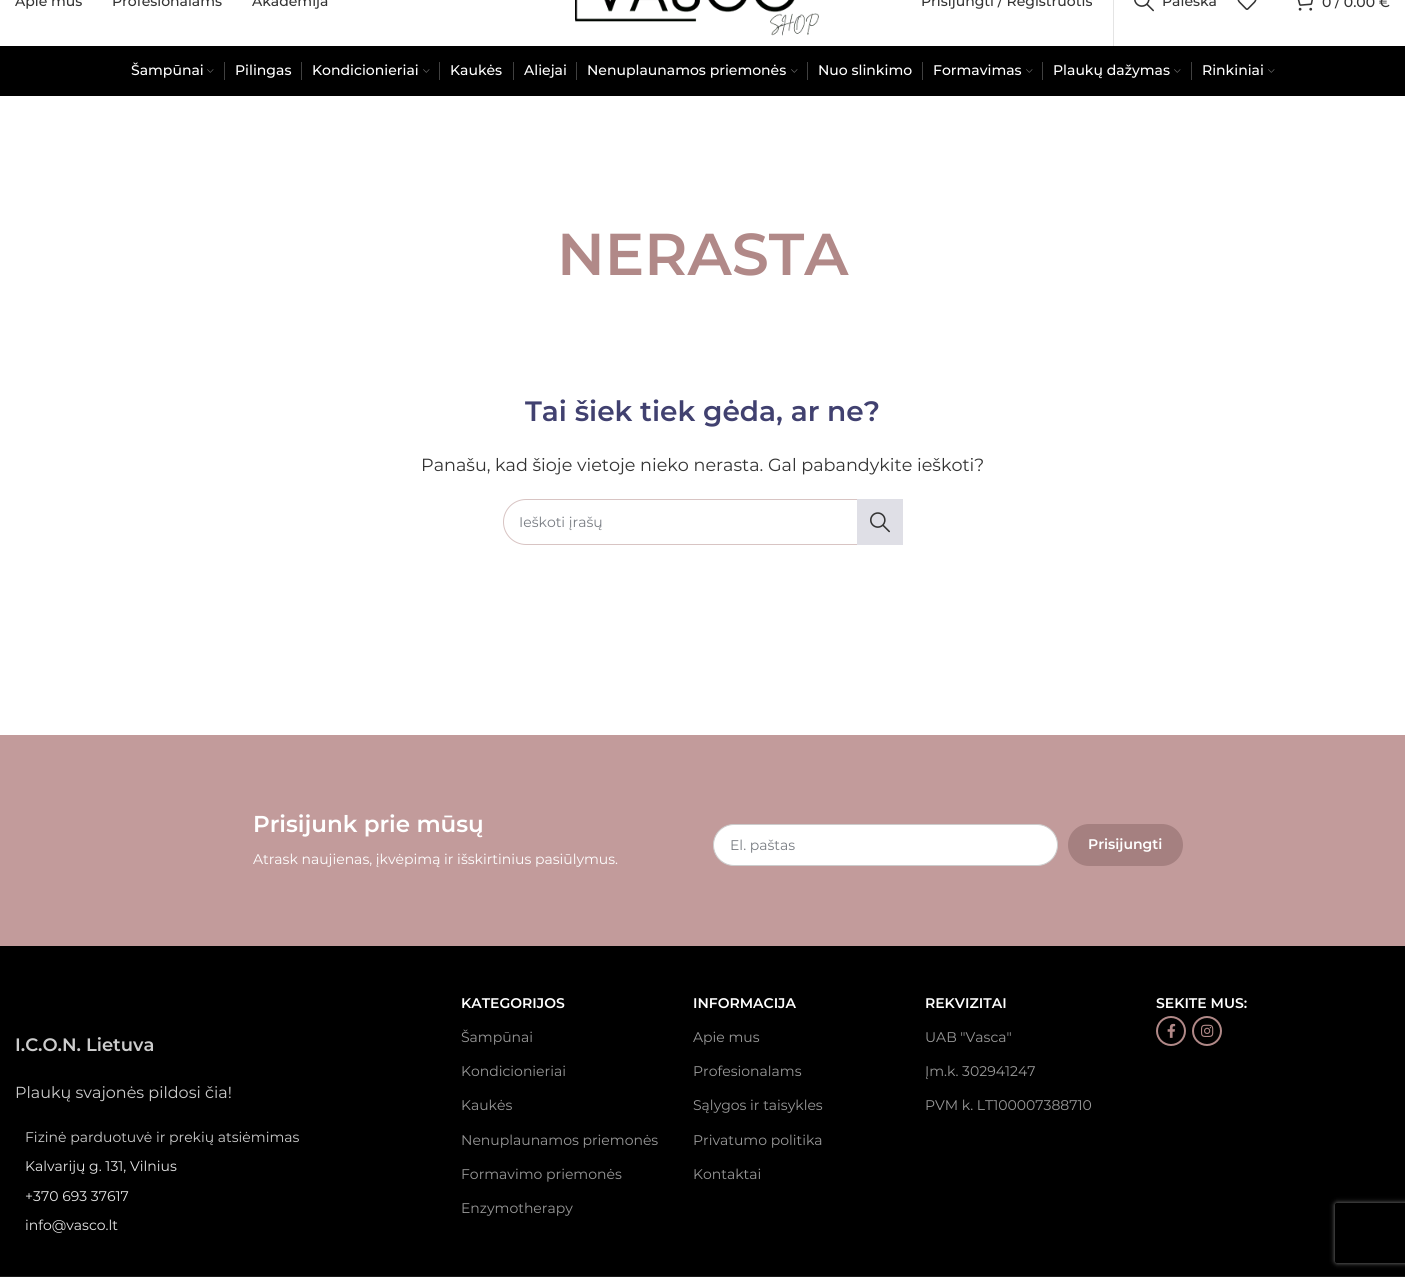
#include <cairo.h>
#include <math.h>
#include <stddef.h>

static cairo_t *ctx;

static void use_color(int r, int g, int b) {
    cairo_set_source_rgb(ctx, r / 255.0, g / 255.0, b / 255.0);
}

static void round_rect(double x, double y, double w, double h, double r) {
    cairo_new_sub_path(ctx);
    cairo_arc(ctx, x + w - r, y + h - r, r, 0, M_PI / 2);
    cairo_arc(ctx, x + r, y + h - r, r, M_PI / 2, M_PI);
    cairo_arc(ctx, x + r, y + r, r, M_PI, 1.5 * M_PI);
    cairo_arc(ctx, x + w - r, y + r, r, 1.5 * M_PI, 2 * M_PI);
    cairo_close_path(ctx);
}

static void shadow(double x, double y, double w, double h, double r, double blur, double alpha) {
    cairo_push_group_with_content(ctx, CAIRO_CONTENT_ALPHA);
    cairo_set_operator(ctx, CAIRO_OPERATOR_SOURCE);
    for (int i = 15; i >= -15 && fmin(w, h) + blur * i / 3 > 0; i -= 2) {
        double e = blur * i / 6;
        cairo_set_source_rgba(ctx, 0, 0, 0, alpha * erfc((i - 1) / 8.5) / 2);
        round_rect(x - e, y - e, w + 2 * e, h + 2 * e, fmax(0, fmin(r + e + blur * .6, fmin(w, h) / 2 + e)));
        cairo_fill(ctx);
    }
    cairo_pattern_t *soft = cairo_pop_group(ctx);
    cairo_mask(ctx, soft);
    cairo_pattern_destroy(soft);
}

static void picture(const char *path, double x, double y, double w, double h) {
    cairo_surface_t *image = cairo_image_surface_create_from_png(path);
    cairo_save(ctx);
    cairo_set_source_surface(ctx, image, x, y);
    cairo_rectangle(ctx, x, y, w, h);
    cairo_fill(ctx);
    cairo_restore(ctx);
    cairo_surface_destroy(image);
}

int main(void) {
    cairo_surface_t *surface = cairo_image_surface_create(CAIRO_FORMAT_RGB24, 1405, 1277);
    ctx = cairo_create(surface);
    cairo_font_options_t *options = cairo_font_options_create();
    cairo_font_options_set_hint_metrics(options, CAIRO_HINT_METRICS_OFF);
    cairo_font_options_set_hint_style(options, CAIRO_HINT_STYLE_NONE);
    cairo_set_font_options(ctx, options);
    cairo_set_miter_limit(ctx, 4);
    use_color(255, 255, 255);
    cairo_paint(ctx);
    cairo_select_font_face(ctx, "Montserrat Medium", CAIRO_FONT_SLANT_NORMAL, CAIRO_FONT_WEIGHT_NORMAL);
    cairo_set_font_size(ctx, 14);
    use_color(51, 51, 51);
    cairo_move_to(ctx, 15, 6);
    cairo_show_text(ctx, "Apie mus");
    cairo_move_to(ctx, 112, 6);
    cairo_show_text(ctx, "Profesionalams");
    cairo_move_to(ctx, 252, 6);
    cairo_show_text(ctx, "Akademija");
    picture("img1.png", 575, 0, 244, 36);
    cairo_move_to(ctx, 921, 6);
    cairo_show_text(ctx, "Prisijungti / Registruotis");
    use_color(228, 228, 228);
    cairo_rectangle(ctx, 1113, 0, 1, 46);
    cairo_fill(ctx);
    picture("img2.png", 1134, 0, 20, 12);
    use_color(51, 51, 51);
    cairo_move_to(ctx, 1162, 6);
    cairo_show_text(ctx, "Paieška");
    picture("img3.png", 1237, 0, 20, 10);
    picture("img4.png", 1297, 0, 16, 11);
    cairo_move_to(ctx, 1322, 7);
    cairo_show_text(ctx, "0 / 0.00 €");
    use_color(0, 0, 0);
    cairo_rectangle(ctx, 0, 46, 1405, 50);
    cairo_fill(ctx);
    use_color(255, 255, 255);
    cairo_move_to(ctx, 131, 75);
    cairo_show_text(ctx, "Šampūnai");
    picture("img5.png", 207, 69, 7, 4);
    use_color(64, 64, 64);
    cairo_rectangle(ctx, 224, 62, 1, 18);
    cairo_fill(ctx);
    use_color(255, 255, 255);
    cairo_move_to(ctx, 235, 75);
    cairo_show_text(ctx, "Pilingas");
    use_color(64, 64, 64);
    cairo_rectangle(ctx, 301, 62, 1, 18);
    cairo_fill(ctx);
    use_color(255, 255, 255);
    cairo_move_to(ctx, 312, 75);
    cairo_show_text(ctx, "Kondicionieriai");
    picture("img5.png", 423, 69, 7, 4);
    use_color(64, 64, 64);
    cairo_rectangle(ctx, 439, 62, 1, 18);
    cairo_fill(ctx);
    use_color(255, 255, 255);
    cairo_move_to(ctx, 450, 75);
    cairo_show_text(ctx, "Kaukės");
    use_color(64, 64, 64);
    cairo_rectangle(ctx, 513, 62, 1, 18);
    cairo_fill(ctx);
    use_color(255, 255, 255);
    cairo_move_to(ctx, 524, 75);
    cairo_show_text(ctx, "Aliejai");
    use_color(64, 64, 64);
    cairo_rectangle(ctx, 576, 62, 1, 18);
    cairo_fill(ctx);
    use_color(255, 255, 255);
    cairo_move_to(ctx, 587, 75);
    cairo_show_text(ctx, "Nenuplaunamos priemonės");
    picture("img5.png", 791, 69, 7, 4);
    use_color(64, 64, 64);
    cairo_rectangle(ctx, 807, 62, 1, 18);
    cairo_fill(ctx);
    use_color(255, 255, 255);
    cairo_move_to(ctx, 818, 75);
    cairo_show_text(ctx, "Nuo slinkimo");
    use_color(64, 64, 64);
    cairo_rectangle(ctx, 922, 62, 1, 18);
    cairo_fill(ctx);
    use_color(255, 255, 255);
    cairo_move_to(ctx, 933, 75);
    cairo_show_text(ctx, "Formavimas");
    picture("img5.png", 1026, 69, 7, 4);
    use_color(64, 64, 64);
    cairo_rectangle(ctx, 1042, 62, 1, 18);
    cairo_fill(ctx);
    use_color(255, 255, 255);
    cairo_move_to(ctx, 1053, 75);
    cairo_show_text(ctx, "Plaukų dažymas");
    picture("img5.png", 1174, 69, 7, 4);
    use_color(64, 64, 64);
    cairo_rectangle(ctx, 1191, 62, 1, 18);
    cairo_fill(ctx);
    use_color(255, 255, 255);
    cairo_move_to(ctx, 1202, 75);
    cairo_show_text(ctx, "Rinkiniai");
    picture("img5.png", 1268, 69, 7, 4);
    cairo_select_font_face(ctx, "Montserrat SemiBold", CAIRO_FONT_SLANT_NORMAL, CAIRO_FONT_WEIGHT_NORMAL);
    cairo_set_font_size(ctx, 59);
    use_color(177, 137, 136);
    cairo_move_to(ctx, 557, 275);
    cairo_show_text(ctx, "NERASTA");
    cairo_set_font_size(ctx, 28);
    use_color(65, 65, 112);
    cairo_move_to(ctx, 525, 421);
    cairo_show_text(ctx, "Tai šiek tiek gėda, ar ne?");
    cairo_select_font_face(ctx, "Montserrat", CAIRO_FONT_SLANT_NORMAL, CAIRO_FONT_WEIGHT_NORMAL);
    cairo_set_font_size(ctx, 17.6);
    use_color(51, 51, 51);
    cairo_move_to(ctx, 421, 471);
    cairo_show_text(ctx, "Panašu, kad šioje vietoje nieko nerasta. Gal pabandykite ieškoti?");
    round_rect(503.5, 499.5, 399, 45, 22.5);
    use_color(216, 196, 195);
    cairo_set_line_width(ctx, 1);
    cairo_stroke(ctx);
    cairo_set_font_size(ctx, 14);
    use_color(120, 124, 130);
    cairo_move_to(ctx, 519, 527);
    cairo_show_text(ctx, "Ieškoti įrašų");
    use_color(223, 223, 230);
    cairo_rectangle(ctx, 857, 499, 46, 46);
    cairo_fill(ctx);
    picture("img6.png", 870, 512, 20, 21);
    use_color(194, 155, 155);
    cairo_rectangle(ctx, 0, 735, 1405, 211);
    cairo_fill(ctx);
    cairo_select_font_face(ctx, "Montserrat SemiBold", CAIRO_FONT_SLANT_NORMAL, CAIRO_FONT_WEIGHT_NORMAL);
    cairo_set_font_size(ctx, 23);
    use_color(255, 255, 255);
    cairo_move_to(ctx, 253, 832);
    cairo_show_text(ctx, "Prisijunk prie mūsų");
    cairo_select_font_face(ctx, "Montserrat", CAIRO_FONT_SLANT_NORMAL, CAIRO_FONT_WEIGHT_NORMAL);
    cairo_set_font_size(ctx, 14);
    cairo_move_to(ctx, 253, 864);
    cairo_show_text(ctx, "Atrask naujienas, įkvėpimą ir išskirtinius pasiūlymus.");
    round_rect(713.5, 824.5, 344, 41, 20.5);
    cairo_fill_preserve(ctx);
    use_color(204, 204, 204);
    cairo_stroke(ctx);
    use_color(120, 124, 130);
    cairo_move_to(ctx, 730, 850);
    cairo_show_text(ctx, "El. paštas");
    use_color(165, 128, 128);
    round_rect(1068, 824, 115, 42, 21);
    cairo_fill(ctx);
    cairo_select_font_face(ctx, "Montserrat SemiBold", CAIRO_FONT_SLANT_NORMAL, CAIRO_FONT_WEIGHT_NORMAL);
    use_color(255, 255, 255);
    cairo_move_to(ctx, 1088, 849);
    cairo_show_text(ctx, "Prisijungti");
    use_color(0, 0, 0);
    cairo_rectangle(ctx, 0, 946, 1405, 330);
    cairo_fill(ctx);
    use_color(26, 26, 26);
    cairo_rectangle(ctx, 0, 1276, 1405, 1);
    cairo_fill(ctx);
    use_color(255, 255, 255);
    cairo_move_to(ctx, 461, 1008);
    cairo_show_text(ctx, "KATEGORIJOS");
    cairo_select_font_face(ctx, "Montserrat", CAIRO_FONT_SLANT_NORMAL, CAIRO_FONT_WEIGHT_NORMAL);
    use_color(153, 153, 153);
    cairo_move_to(ctx, 461, 1042);
    cairo_show_text(ctx, "Šampūnai");
    cairo_move_to(ctx, 461, 1076);
    cairo_show_text(ctx, "Kondicionieriai");
    cairo_move_to(ctx, 461, 1110);
    cairo_show_text(ctx, "Kaukės");
    cairo_move_to(ctx, 461, 1145);
    cairo_show_text(ctx, "Nenuplaunamos priemonės");
    cairo_move_to(ctx, 461, 1179);
    cairo_show_text(ctx, "Formavimo priemonės");
    cairo_move_to(ctx, 461, 1213);
    cairo_show_text(ctx, "Enzymotherapy");
    cairo_select_font_face(ctx, "Montserrat SemiBold", CAIRO_FONT_SLANT_NORMAL, CAIRO_FONT_WEIGHT_NORMAL);
    use_color(255, 255, 255);
    cairo_move_to(ctx, 693, 1008);
    cairo_show_text(ctx, "INFORMACIJA");
    cairo_select_font_face(ctx, "Montserrat", CAIRO_FONT_SLANT_NORMAL, CAIRO_FONT_WEIGHT_NORMAL);
    use_color(153, 153, 153);
    cairo_move_to(ctx, 693, 1042);
    cairo_show_text(ctx, "Apie mus");
    cairo_move_to(ctx, 693, 1076);
    cairo_show_text(ctx, "Profesionalams");
    cairo_move_to(ctx, 693, 1110);
    cairo_show_text(ctx, "Sąlygos ir taisykles");
    cairo_move_to(ctx, 693, 1145);
    cairo_show_text(ctx, "Privatumo politika");
    cairo_move_to(ctx, 693, 1179);
    cairo_show_text(ctx, "Kontaktai");
    cairo_select_font_face(ctx, "Montserrat SemiBold", CAIRO_FONT_SLANT_NORMAL, CAIRO_FONT_WEIGHT_NORMAL);
    use_color(255, 255, 255);
    cairo_move_to(ctx, 925, 1008);
    cairo_show_text(ctx, "REKVIZITAI");
    cairo_select_font_face(ctx, "Montserrat", CAIRO_FONT_SLANT_NORMAL, CAIRO_FONT_WEIGHT_NORMAL);
    use_color(153, 153, 153);
    cairo_move_to(ctx, 925, 1042);
    cairo_show_text(ctx, "UAB \"Vasca\"");
    cairo_move_to(ctx, 925, 1076);
    cairo_show_text(ctx, "Įm.k. 302941247");
    cairo_move_to(ctx, 925, 1110);
    cairo_show_text(ctx, "PVM k. LT100007388710");
    cairo_select_font_face(ctx, "Montserrat SemiBold", CAIRO_FONT_SLANT_NORMAL, CAIRO_FONT_WEIGHT_NORMAL);
    use_color(255, 255, 255);
    cairo_move_to(ctx, 1156, 1008);
    cairo_show_text(ctx, "SEKITE MUS:");
    cairo_new_path(ctx);
    cairo_arc(ctx, 1171, 1031, 14, 0, 2 * M_PI);
    use_color(177, 137, 136);
    cairo_set_line_width(ctx, 2);
    cairo_stroke(ctx);
    picture("img7.png", 1167, 1023, 9, 15);
    cairo_arc(ctx, 1207, 1031, 14, 0, 2 * M_PI);
    cairo_stroke(ctx);
    picture("img8.png", 1201, 1024, 13, 13);
    cairo_set_font_size(ctx, 18);
    use_color(204, 204, 204);
    cairo_move_to(ctx, 15, 1051);
    cairo_show_text(ctx, "I.C.O.N. Lietuva");
    cairo_select_font_face(ctx, "Montserrat", CAIRO_FONT_SLANT_NORMAL, CAIRO_FONT_WEIGHT_NORMAL);
    cairo_set_font_size(ctx, 16);
    cairo_move_to(ctx, 15, 1098);
    cairo_show_text(ctx, "Plaukų svajonės pildosi čia!");
    cairo_set_font_size(ctx, 14);
    cairo_move_to(ctx, 25, 1142);
    cairo_show_text(ctx, "Fizinė parduotuvė ir prekių atsiėmimas");
    use_color(230, 230, 230);
    cairo_move_to(ctx, 25, 1171);
    cairo_show_text(ctx, "Kalvarijų g. 131, Vilnius");
    cairo_move_to(ctx, 25, 1201);
    cairo_show_text(ctx, "+370 693 37617");
    cairo_move_to(ctx, 25, 1230);
    cairo_show_text(ctx, "info@vasco.lt");
    cairo_save(ctx);
    cairo_set_fill_rule(ctx, CAIRO_FILL_RULE_EVEN_ODD);
    cairo_new_path(ctx);
    cairo_move_to(ctx, 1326, 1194);
    cairo_line_to(ctx, 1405, 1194);
    cairo_line_to(ctx, 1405, 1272);
    cairo_line_to(ctx, 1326, 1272);
    cairo_close_path(ctx);
    cairo_move_to(ctx, 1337, 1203);
    cairo_line_to(ctx, 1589, 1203);
    cairo_curve_to(ctx, 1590, 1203, 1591, 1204, 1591, 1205);
    cairo_line_to(ctx, 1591, 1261);
    cairo_curve_to(ctx, 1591, 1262, 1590, 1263, 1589, 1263);
    cairo_line_to(ctx, 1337, 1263);
    cairo_curve_to(ctx, 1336, 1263, 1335, 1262, 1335, 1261);
    cairo_line_to(ctx, 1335, 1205);
    cairo_curve_to(ctx, 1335, 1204, 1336, 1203, 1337, 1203);
    cairo_close_path(ctx);
    cairo_clip(ctx);
    use_color(128, 128, 128);
    shadow(1335, 1203, 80, 60, 2, 2.5, 1);
    cairo_restore(ctx);
    cairo_surface_write_to_png(surface, "result.png");
    cairo_font_options_destroy(options);
    cairo_destroy(ctx);
    cairo_surface_destroy(surface);
    return 0;
}
